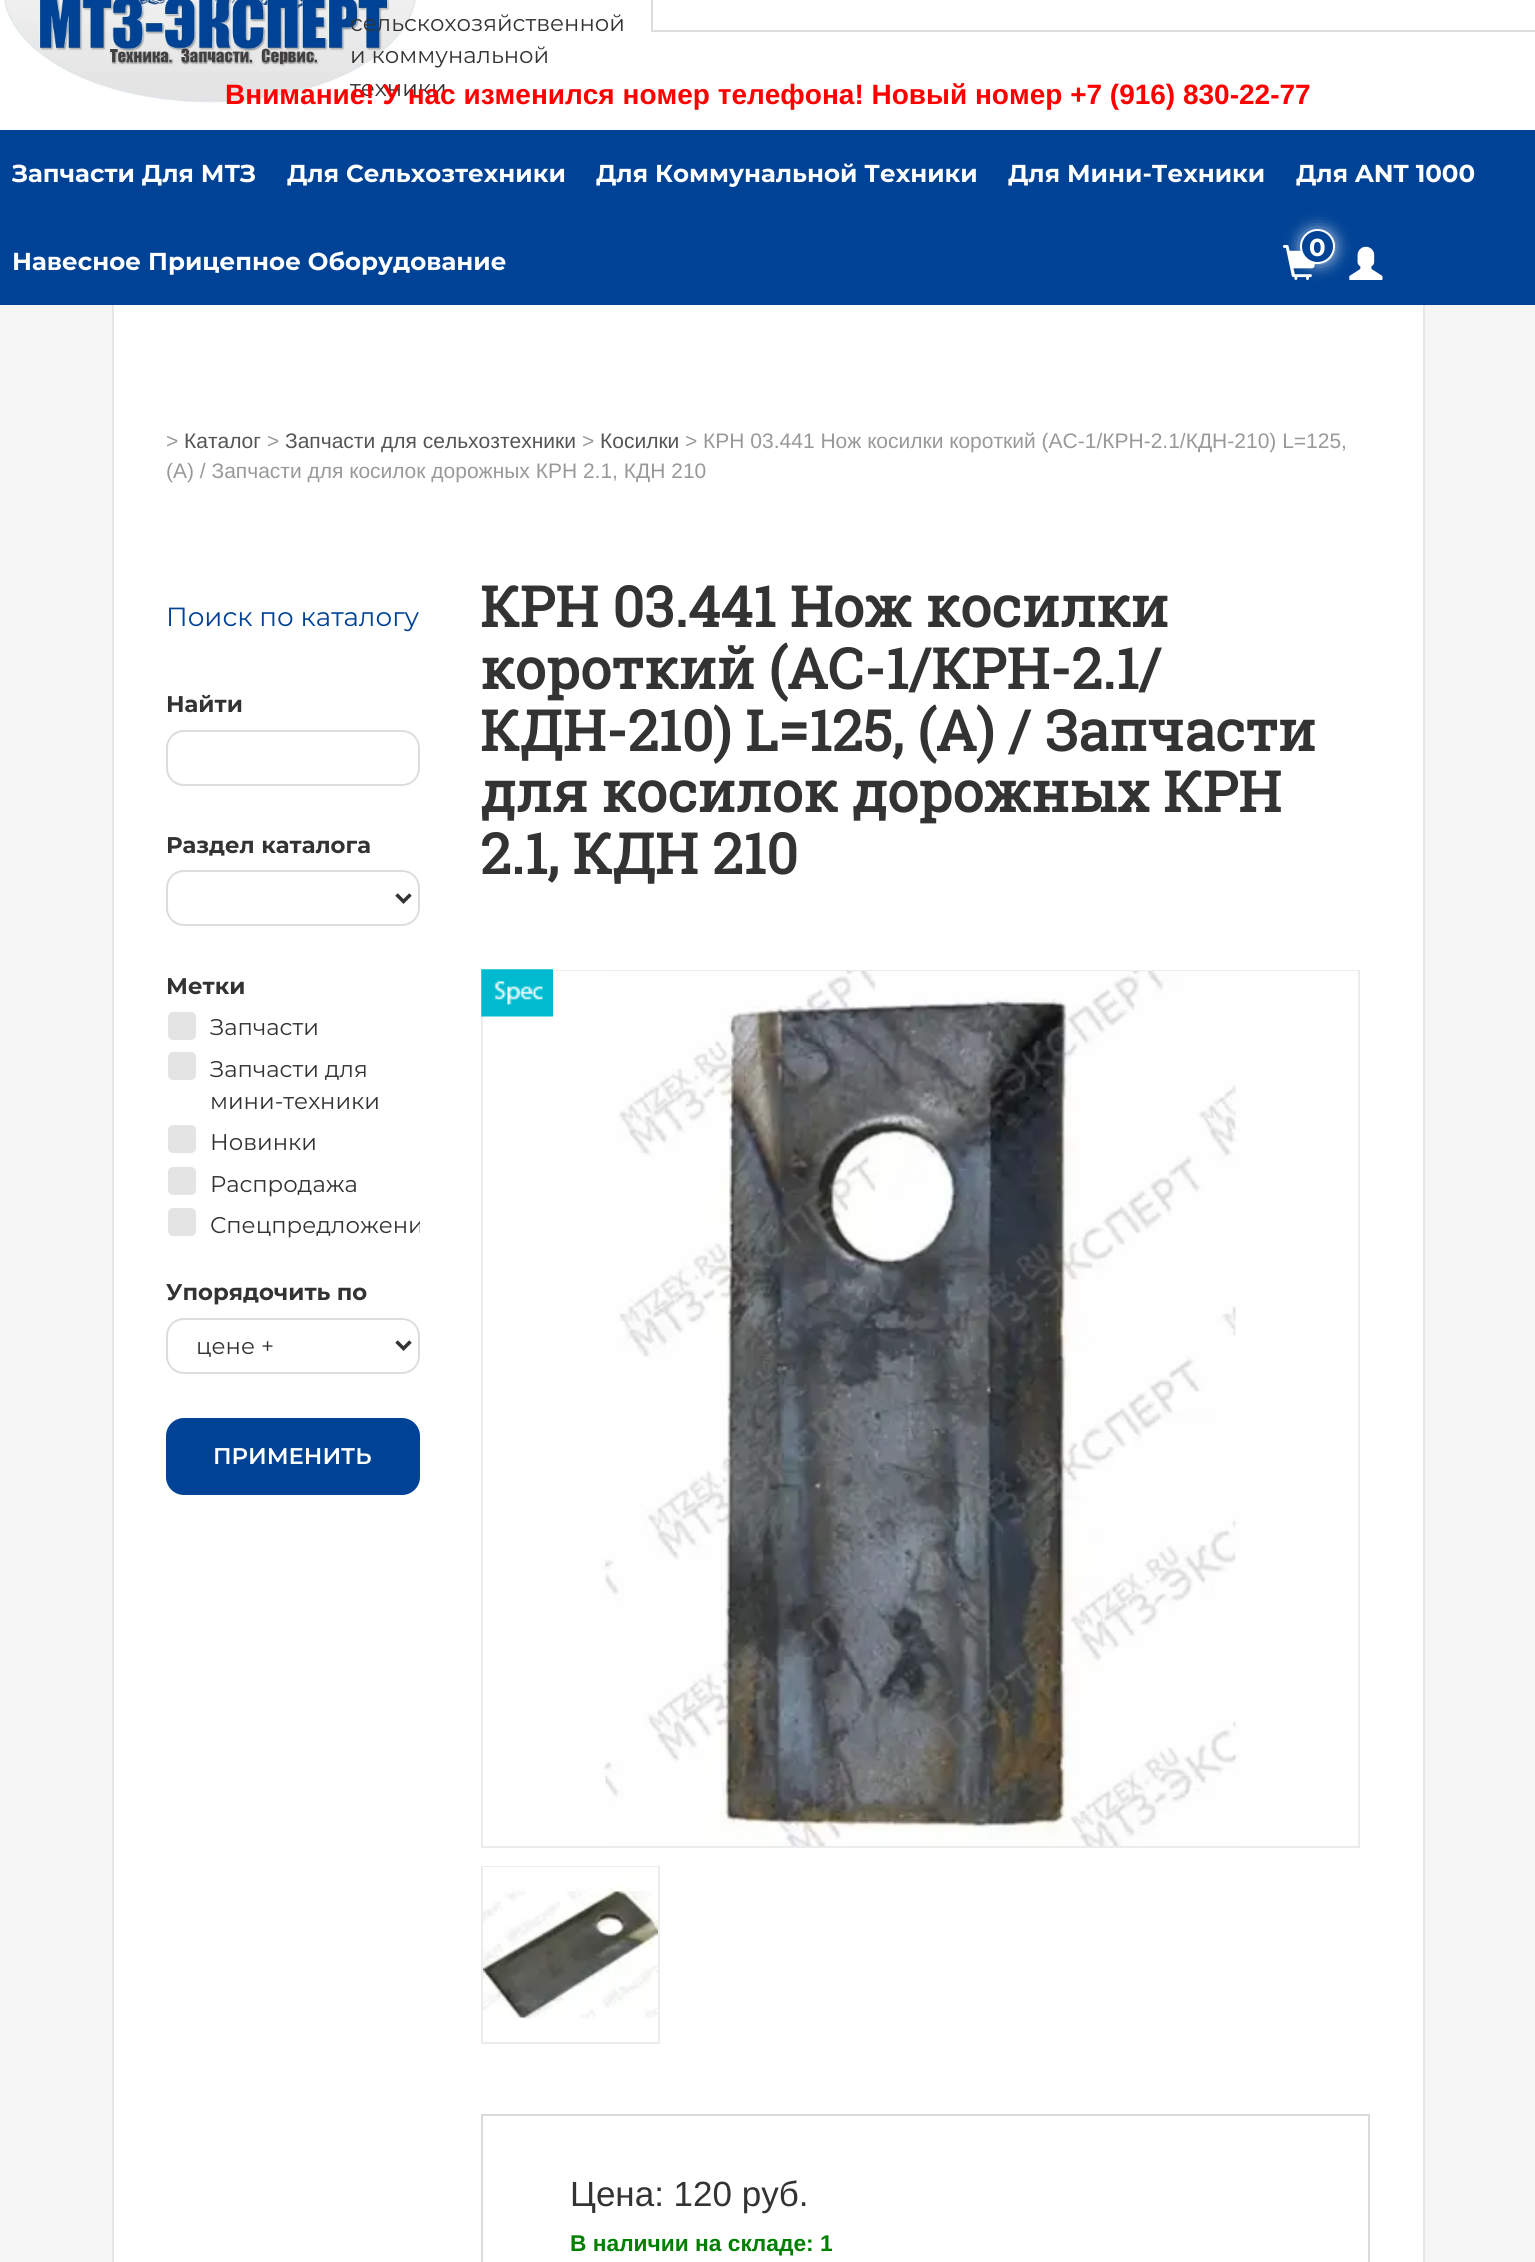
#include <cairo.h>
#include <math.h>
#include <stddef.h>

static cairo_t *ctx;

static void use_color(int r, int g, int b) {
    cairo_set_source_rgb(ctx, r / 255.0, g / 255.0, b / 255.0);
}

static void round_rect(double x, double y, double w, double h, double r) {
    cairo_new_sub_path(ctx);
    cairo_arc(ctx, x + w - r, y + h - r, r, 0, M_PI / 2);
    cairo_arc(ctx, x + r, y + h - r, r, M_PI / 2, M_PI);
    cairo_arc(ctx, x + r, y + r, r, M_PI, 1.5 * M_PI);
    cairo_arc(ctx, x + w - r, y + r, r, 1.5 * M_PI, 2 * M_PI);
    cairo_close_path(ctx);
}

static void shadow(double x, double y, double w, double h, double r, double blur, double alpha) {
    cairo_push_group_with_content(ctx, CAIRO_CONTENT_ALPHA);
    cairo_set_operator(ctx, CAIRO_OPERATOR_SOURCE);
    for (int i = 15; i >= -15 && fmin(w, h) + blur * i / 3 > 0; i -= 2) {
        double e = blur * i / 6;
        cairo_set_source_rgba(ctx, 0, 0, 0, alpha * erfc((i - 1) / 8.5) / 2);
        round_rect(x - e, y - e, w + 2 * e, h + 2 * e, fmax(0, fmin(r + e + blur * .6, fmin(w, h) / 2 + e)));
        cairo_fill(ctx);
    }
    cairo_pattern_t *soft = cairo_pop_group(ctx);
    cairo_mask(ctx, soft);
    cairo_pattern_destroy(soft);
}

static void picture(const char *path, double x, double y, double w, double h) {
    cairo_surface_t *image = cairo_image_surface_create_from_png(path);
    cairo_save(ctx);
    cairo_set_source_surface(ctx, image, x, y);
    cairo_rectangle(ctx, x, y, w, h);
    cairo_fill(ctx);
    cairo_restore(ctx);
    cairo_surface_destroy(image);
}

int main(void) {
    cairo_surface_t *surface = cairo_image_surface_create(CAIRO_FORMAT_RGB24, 1535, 2262);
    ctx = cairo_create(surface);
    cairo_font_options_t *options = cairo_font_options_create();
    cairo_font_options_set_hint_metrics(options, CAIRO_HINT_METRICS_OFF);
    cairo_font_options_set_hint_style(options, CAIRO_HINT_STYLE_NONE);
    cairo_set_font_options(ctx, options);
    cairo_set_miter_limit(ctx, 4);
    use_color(255, 255, 255);
    cairo_paint(ctx);
    picture("img1.png", 4, 0, 412, 103);
    cairo_select_font_face(ctx, "Montserrat", CAIRO_FONT_SLANT_NORMAL, CAIRO_FONT_WEIGHT_NORMAL);
    cairo_set_font_size(ctx, 22.75);
    use_color(51, 51, 51);
    cairo_move_to(ctx, 350, 31);
    cairo_show_text(ctx, "сельскохозяйственной");
    cairo_move_to(ctx, 350, 63);
    cairo_show_text(ctx, "и коммунальной");
    cairo_move_to(ctx, 350, 96);
    cairo_show_text(ctx, "техники");
    cairo_rectangle(ctx, 652, -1, 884, 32);
    use_color(221, 221, 221);
    cairo_stroke(ctx);
    cairo_select_font_face(ctx, "Liberation Sans", CAIRO_FONT_SLANT_NORMAL, CAIRO_FONT_WEIGHT_BOLD);
    cairo_set_font_size(ctx, 28);
    use_color(255, 0, 0);
    cairo_move_to(ctx, 225, 104);
    cairo_show_text(ctx, "Внимание! У нас изменился номер телефона! Новый номер +7 (916) 830-22-77");
    use_color(0, 66, 149);
    cairo_rectangle(ctx, 0, 130, 1535, 175);
    cairo_fill(ctx);
    cairo_select_font_face(ctx, "Montserrat", CAIRO_FONT_SLANT_NORMAL, CAIRO_FONT_WEIGHT_BOLD);
    cairo_set_font_size(ctx, 24.5);
    use_color(255, 255, 255);
    cairo_move_to(ctx, 12, 182);
    cairo_show_text(ctx, "Запчасти Для МТЗ");
    cairo_move_to(ctx, 287, 182);
    cairo_show_text(ctx, "Для Сельхозтехники");
    cairo_move_to(ctx, 596, 182);
    cairo_show_text(ctx, "Для Коммунальной Техники");
    cairo_move_to(ctx, 1008, 182);
    cairo_show_text(ctx, "Для Мини-Техники");
    cairo_move_to(ctx, 1296, 182);
    cairo_show_text(ctx, "Для ANT 1000");
    cairo_move_to(ctx, 12, 270);
    cairo_show_text(ctx, "Навесное Прицепное Оборудование");
    picture("img2.png", 1282, 245, 33, 35);
    use_color(255, 255, 255);
    shadow(1304, 233, 28, 28, 14, 9, 1);
    use_color(0, 66, 149);
    cairo_arc(ctx, 1317.5, 246.5, 16.5, 0, 2 * M_PI);
    cairo_fill_preserve(ctx);
    use_color(255, 255, 255);
    cairo_stroke(ctx);
    cairo_move_to(ctx, 1309, 256);
    cairo_show_text(ctx, "0");
    picture("img3.png", 1349, 246, 34, 34);
    use_color(246, 246, 246);
    cairo_rectangle(ctx, 0, 305, 1535, 1957);
    cairo_fill(ctx);
    use_color(255, 255, 255);
    cairo_rectangle(ctx, 114, 305, 1309, 1957);
    cairo_fill(ctx);
    use_color(230, 230, 230);
    cairo_rectangle(ctx, 1423, 305, 2, 1957);
    cairo_fill(ctx);
    cairo_rectangle(ctx, 112, 305, 2, 1957);
    cairo_fill(ctx);
    cairo_select_font_face(ctx, "Liberation Sans", CAIRO_FONT_SLANT_NORMAL, CAIRO_FONT_WEIGHT_NORMAL);
    cairo_set_font_size(ctx, 21);
    use_color(153, 153, 153);
    cairo_move_to(ctx, 166, 448);
    cairo_show_text(ctx, ">");
    use_color(85, 85, 85);
    cairo_move_to(ctx, 184, 448);
    cairo_show_text(ctx, "Каталог");
    use_color(153, 153, 153);
    cairo_move_to(ctx, 267, 448);
    cairo_show_text(ctx, ">");
    use_color(85, 85, 85);
    cairo_move_to(ctx, 285, 448);
    cairo_show_text(ctx, "Запчасти для сельхозтехники");
    use_color(153, 153, 153);
    cairo_move_to(ctx, 582, 448);
    cairo_show_text(ctx, ">");
    use_color(85, 85, 85);
    cairo_move_to(ctx, 600, 448);
    cairo_show_text(ctx, "Косилки");
    use_color(153, 153, 153);
    cairo_move_to(ctx, 685, 448);
    cairo_show_text(ctx, "> КРН 03.441 Нож косилки короткий (АС-1/КРН-2.1/КДН-210) L=125,");
    cairo_move_to(ctx, 166, 478);
    cairo_show_text(ctx, "(А) / Запчасти для косилок дорожных КРН 2.1, КДН 210");
    cairo_select_font_face(ctx, "Montserrat", CAIRO_FONT_SLANT_NORMAL, CAIRO_FONT_WEIGHT_NORMAL);
    cairo_set_font_size(ctx, 26.25);
    use_color(0, 66, 149);
    cairo_move_to(ctx, 166, 626);
    cairo_show_text(ctx, "Поиск по каталогу");
    cairo_select_font_face(ctx, "Montserrat", CAIRO_FONT_SLANT_NORMAL, CAIRO_FONT_WEIGHT_BOLD);
    cairo_set_font_size(ctx, 22.75);
    use_color(51, 51, 51);
    cairo_move_to(ctx, 166, 712);
    cairo_show_text(ctx, "Найти");
    round_rect(167, 731, 252, 54, 17);
    use_color(221, 221, 221);
    cairo_stroke(ctx);
    use_color(51, 51, 51);
    cairo_move_to(ctx, 166, 853);
    cairo_show_text(ctx, "Раздел каталога");
    round_rect(167, 871, 252, 54, 17);
    use_color(221, 221, 221);
    cairo_stroke(ctx);
    cairo_new_path(ctx);
    cairo_move_to(ctx, 396.5, 894.5);
    cairo_line_to(ctx, 403.5, 901.5);
    cairo_line_to(ctx, 410.5, 894.5);
    use_color(51, 51, 51);
    cairo_set_line_width(ctx, 3.5);
    cairo_stroke(ctx);
    cairo_move_to(ctx, 166, 994);
    cairo_show_text(ctx, "Метки");
    use_color(228, 228, 228);
    round_rect(168, 1012, 28, 28, 5);
    cairo_fill(ctx);
    cairo_select_font_face(ctx, "Montserrat", CAIRO_FONT_SLANT_NORMAL, CAIRO_FONT_WEIGHT_NORMAL);
    use_color(51, 51, 51);
    cairo_move_to(ctx, 210, 1035);
    cairo_show_text(ctx, "Запчасти");
    use_color(228, 228, 228);
    round_rect(168, 1052, 28, 28, 5);
    cairo_fill(ctx);
    use_color(51, 51, 51);
    cairo_move_to(ctx, 210, 1077);
    cairo_show_text(ctx, "Запчасти для");
    cairo_move_to(ctx, 210, 1109);
    cairo_show_text(ctx, "мини-техники");
    use_color(228, 228, 228);
    round_rect(168, 1125, 28, 28, 5);
    cairo_fill(ctx);
    use_color(51, 51, 51);
    cairo_move_to(ctx, 210, 1150);
    cairo_show_text(ctx, "Новинки");
    use_color(228, 228, 228);
    round_rect(168, 1167, 28, 28, 5);
    cairo_fill(ctx);
    use_color(51, 51, 51);
    cairo_move_to(ctx, 210, 1192);
    cairo_show_text(ctx, "Распродажа");
    use_color(228, 228, 228);
    round_rect(168, 1208, 28, 28, 5);
    cairo_fill(ctx);
    cairo_save(ctx);
    cairo_rectangle(ctx, 166, 970, 254, 280);
    cairo_clip(ctx);
    use_color(51, 51, 51);
    cairo_move_to(ctx, 210, 1233);
    cairo_show_text(ctx, "Спецпредложени");
    cairo_restore(ctx);
    cairo_select_font_face(ctx, "Montserrat", CAIRO_FONT_SLANT_NORMAL, CAIRO_FONT_WEIGHT_BOLD);
    use_color(51, 51, 51);
    cairo_move_to(ctx, 166, 1300);
    cairo_show_text(ctx, "Упорядочить по");
    round_rect(167, 1319, 252, 54, 17);
    use_color(221, 221, 221);
    cairo_set_line_width(ctx, 2);
    cairo_stroke(ctx);
    cairo_new_path(ctx);
    cairo_move_to(ctx, 396.5, 1341.5);
    cairo_line_to(ctx, 403.5, 1348.5);
    cairo_line_to(ctx, 410.5, 1341.5);
    use_color(51, 51, 51);
    cairo_set_line_width(ctx, 3.5);
    cairo_stroke(ctx);
    cairo_select_font_face(ctx, "Montserrat", CAIRO_FONT_SLANT_NORMAL, CAIRO_FONT_WEIGHT_NORMAL);
    cairo_move_to(ctx, 196, 1354);
    cairo_show_text(ctx, "цене +");
    use_color(0, 66, 149);
    round_rect(166, 1418, 254, 77, 18);
    cairo_fill(ctx);
    cairo_select_font_face(ctx, "Montserrat SemiBold", CAIRO_FONT_SLANT_NORMAL, CAIRO_FONT_WEIGHT_NORMAL);
    use_color(255, 255, 255);
    cairo_move_to(ctx, 213, 1464);
    cairo_show_text(ctx, "ПРИМЕНИТЬ");
    cairo_select_font_face(ctx, "Roboto Slab", CAIRO_FONT_SLANT_NORMAL, CAIRO_FONT_WEIGHT_BOLD);
    cairo_set_font_size(ctx, 56);
    use_color(51, 51, 51);
    cairo_move_to(ctx, 480, 627);
    cairo_show_text(ctx, "КРН 03.441 Нож косилки");
    cairo_move_to(ctx, 480, 689);
    cairo_show_text(ctx, "короткий (АС-1/КРН-2.1/");
    cairo_move_to(ctx, 480, 751);
    cairo_show_text(ctx, "КДН-210) L=125, (А) / Запчасти");
    cairo_move_to(ctx, 480, 812);
    cairo_show_text(ctx, "для косилок дорожных КРН");
    cairo_move_to(ctx, 480, 874);
    cairo_show_text(ctx, "2.1, КДН 210");
    cairo_rectangle(ctx, 482, 971, 877, 876);
    use_color(236, 236, 236);
    cairo_set_line_width(ctx, 2);
    cairo_stroke(ctx);
    picture("img5.png", 483, 971, 875, 875);
    picture("img4.png", 481, 969, 72, 48);
    cairo_rectangle(ctx, 482, 1867, 177, 176);
    cairo_stroke(ctx);
    picture("img6.png", 483, 1867, 175, 153);
    cairo_rectangle(ctx, 482, 2115, 887, 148);
    use_color(219, 219, 219);
    cairo_stroke(ctx);
    cairo_select_font_face(ctx, "Liberation Sans", CAIRO_FONT_SLANT_NORMAL, CAIRO_FONT_WEIGHT_NORMAL);
    cairo_set_font_size(ctx, 35);
    use_color(51, 51, 51);
    cairo_move_to(ctx, 570, 2206);
    cairo_show_text(ctx, "Цена: 120 руб.");
    cairo_select_font_face(ctx, "Liberation Sans", CAIRO_FONT_SLANT_NORMAL, CAIRO_FONT_WEIGHT_BOLD);
    cairo_set_font_size(ctx, 22.75);
    use_color(0, 128, 0);
    cairo_move_to(ctx, 570, 2251);
    cairo_show_text(ctx, "В наличии на складе: 1");
    cairo_surface_write_to_png(surface, "result.png");
    cairo_font_options_destroy(options);
    cairo_destroy(ctx);
    cairo_surface_destroy(surface);
    return 0;
}
